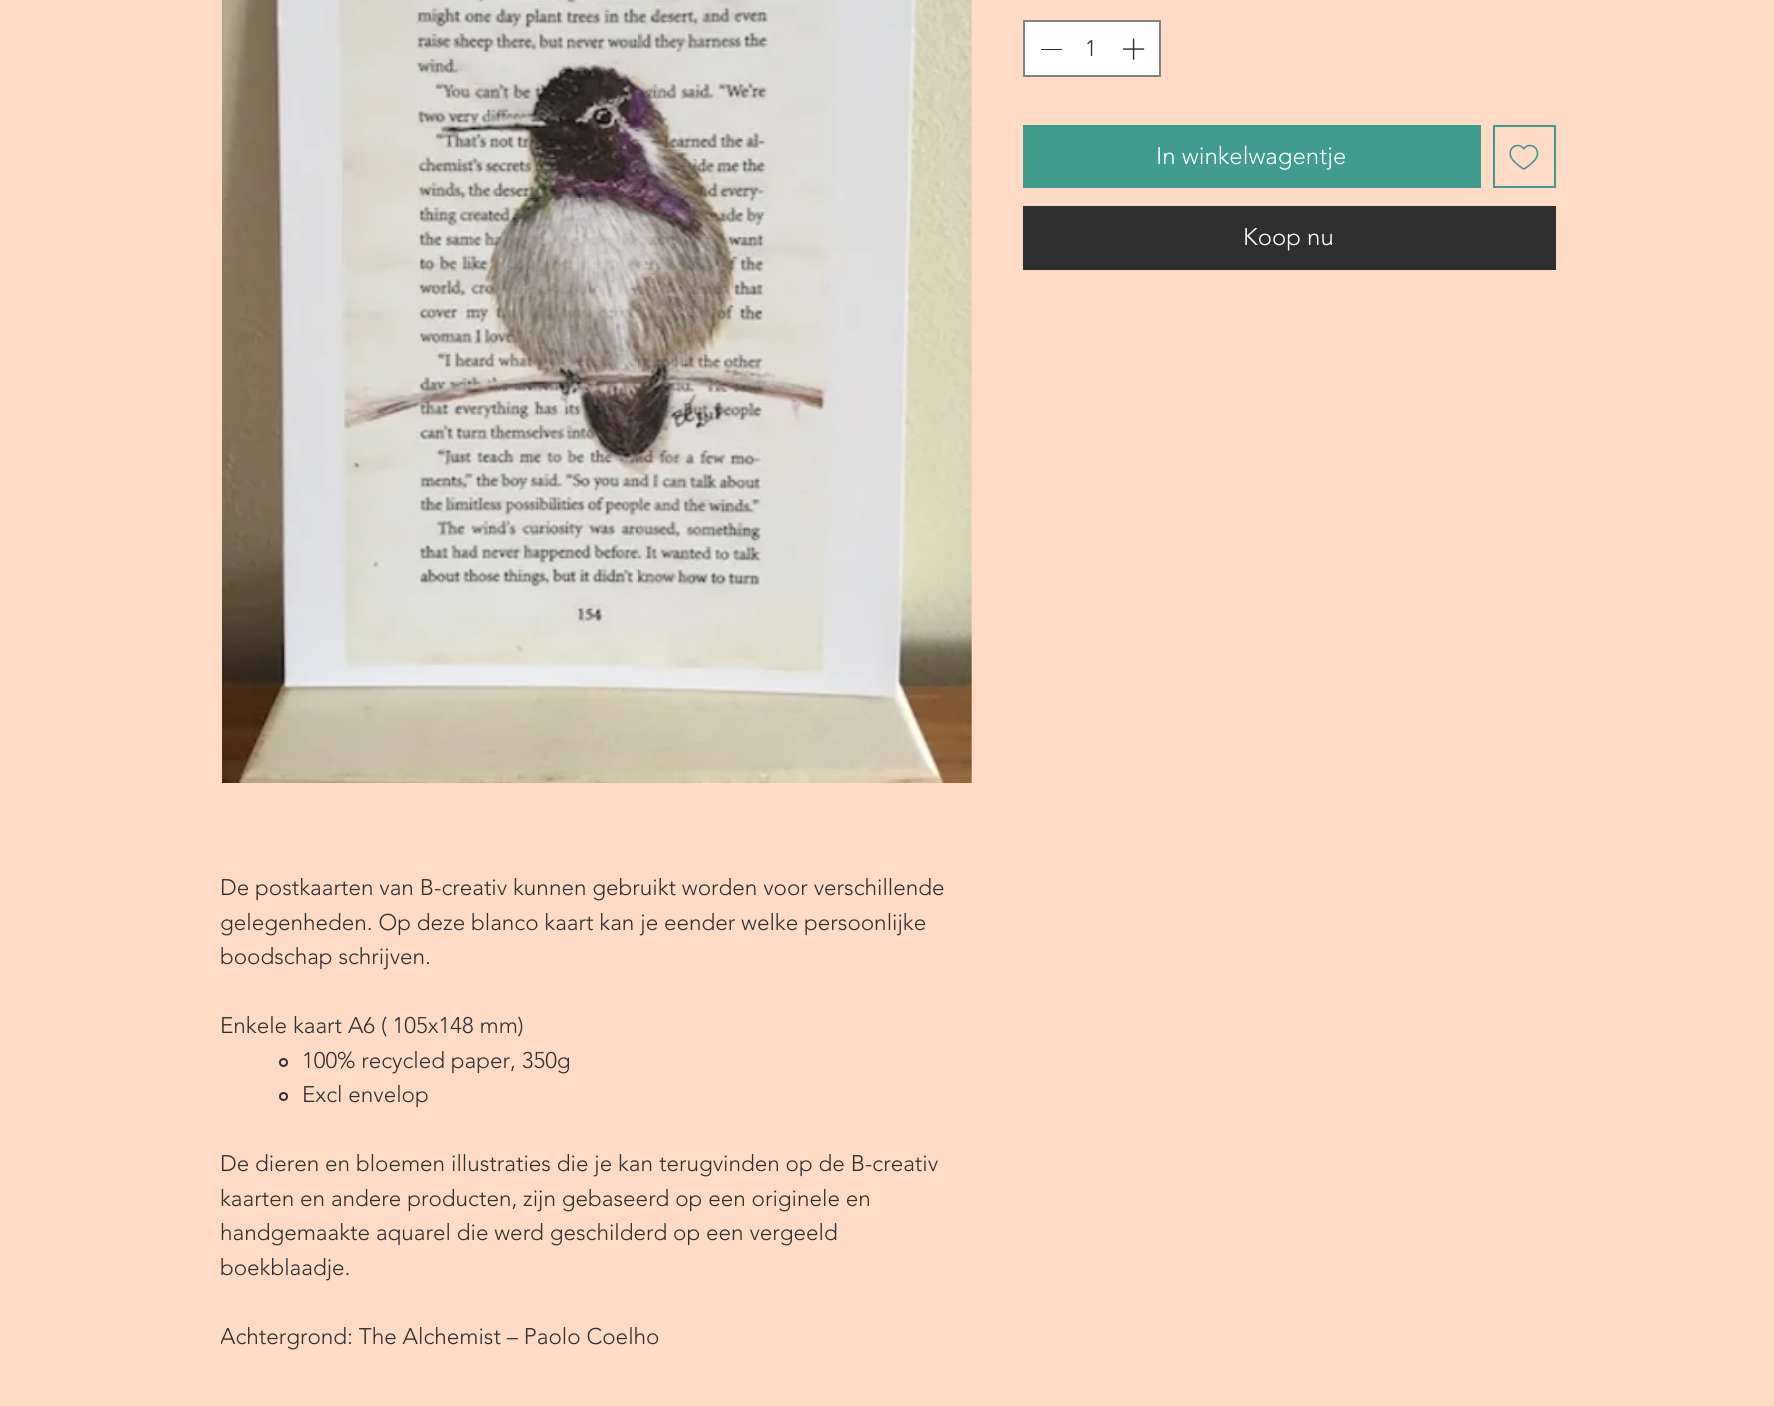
#include <cairo.h>
#include <math.h>
#include <stddef.h>

static cairo_t *ctx;

static void use_color(int r, int g, int b) {
    cairo_set_source_rgb(ctx, r / 255.0, g / 255.0, b / 255.0);
}

static void picture(const char *path, double x, double y, double w, double h) {
    cairo_surface_t *image = cairo_image_surface_create_from_png(path);
    cairo_save(ctx);
    cairo_set_source_surface(ctx, image, x, y);
    cairo_rectangle(ctx, x, y, w, h);
    cairo_fill(ctx);
    cairo_restore(ctx);
    cairo_surface_destroy(image);
}

int main(void) {
    cairo_surface_t *surface = cairo_image_surface_create(CAIRO_FORMAT_RGB24, 1774, 1406);
    ctx = cairo_create(surface);
    cairo_font_options_t *options = cairo_font_options_create();
    cairo_font_options_set_hint_metrics(options, CAIRO_HINT_METRICS_OFF);
    cairo_font_options_set_hint_style(options, CAIRO_HINT_STYLE_NONE);
    cairo_set_font_options(ctx, options);
    cairo_set_miter_limit(ctx, 4);
    use_color(255, 219, 198);
    cairo_paint(ctx);
    use_color(255, 255, 255);
    cairo_rectangle(ctx, 1024, 21, 136, 55);
    cairo_fill_preserve(ctx);
    use_color(130, 130, 131);
    cairo_stroke(ctx);
    use_color(47, 47, 48);
    cairo_rectangle(ctx, 1041, 49, 21, 1);
    cairo_fill(ctx);
    cairo_select_font_face(ctx, "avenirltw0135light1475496 Light", CAIRO_FONT_SLANT_NORMAL, CAIRO_FONT_WEIGHT_NORMAL);
    cairo_set_font_size(ctx, 22.5);
    cairo_move_to(ctx, 1085, 56);
    cairo_show_text(ctx, "1");
    picture("img1.png", 1123, 38, 22, 22);
    use_color(64, 156, 140);
    cairo_rectangle(ctx, 1023, 125, 458, 63);
    cairo_fill(ctx);
    cairo_set_font_size(ctx, 24);
    use_color(255, 255, 255);
    cairo_move_to(ctx, 1156, 164);
    cairo_show_text(ctx, "In winkelwagentje");
    cairo_rectangle(ctx, 1494, 126, 61, 61);
    use_color(64, 156, 140);
    cairo_stroke(ctx);
    picture("img2.png", 1509, 144, 30, 26);
    use_color(47, 47, 48);
    cairo_rectangle(ctx, 1023, 206, 533, 64);
    cairo_fill(ctx);
    use_color(255, 255, 255);
    cairo_move_to(ctx, 1243, 245);
    cairo_show_text(ctx, "Koop nu");
    picture("img3.png", 222, 0, 750, 783);
    cairo_set_font_size(ctx, 22.5);
    use_color(47, 47, 48);
    cairo_move_to(ctx, 220, 895);
    cairo_show_text(ctx, "De postkaarten van B-creativ kunnen gebruikt worden voor verschillende");
    cairo_move_to(ctx, 220, 930);
    cairo_show_text(ctx, "gelegenheden. Op deze blanco kaart kan je eender welke persoonlijke");
    cairo_move_to(ctx, 220, 964);
    cairo_show_text(ctx, "boodschap schrijven.");
    cairo_move_to(ctx, 220, 1033);
    cairo_show_text(ctx, "Enkele kaart A6 ( 105x148 mm)");
    cairo_new_path(ctx);
    cairo_arc(ctx, 283.5, 1062.5, 3.5, 0, 2 * M_PI);
    cairo_stroke(ctx);
    cairo_move_to(ctx, 302, 1068);
    cairo_show_text(ctx, "100% recycled paper, 350g");
    cairo_new_path(ctx);
    cairo_arc(ctx, 283.5, 1096.5, 3.5, 0, 2 * M_PI);
    cairo_stroke(ctx);
    cairo_move_to(ctx, 302, 1102);
    cairo_show_text(ctx, "Excl envelop");
    cairo_move_to(ctx, 220, 1171);
    cairo_show_text(ctx, "De dieren en bloemen illustraties die je kan terugvinden op de B-creativ");
    cairo_move_to(ctx, 220, 1206);
    cairo_show_text(ctx, "kaarten en andere producten, zijn gebaseerd op een originele en");
    cairo_move_to(ctx, 220, 1240);
    cairo_show_text(ctx, "handgemaakte aquarel die werd geschilderd op een vergeeld");
    cairo_move_to(ctx, 220, 1275);
    cairo_show_text(ctx, "boekblaadje.");
    cairo_save(ctx);
    cairo_rectangle(ctx, 221, 872, 750, 483);
    cairo_clip(ctx);
    cairo_move_to(ctx, 220, 1344);
    cairo_show_text(ctx, "Achtergrond: The Alchemist – Paolo Coelho");
    cairo_restore(ctx);
    cairo_surface_write_to_png(surface, "result.png");
    cairo_font_options_destroy(options);
    cairo_destroy(ctx);
    cairo_surface_destroy(surface);
    return 0;
}
